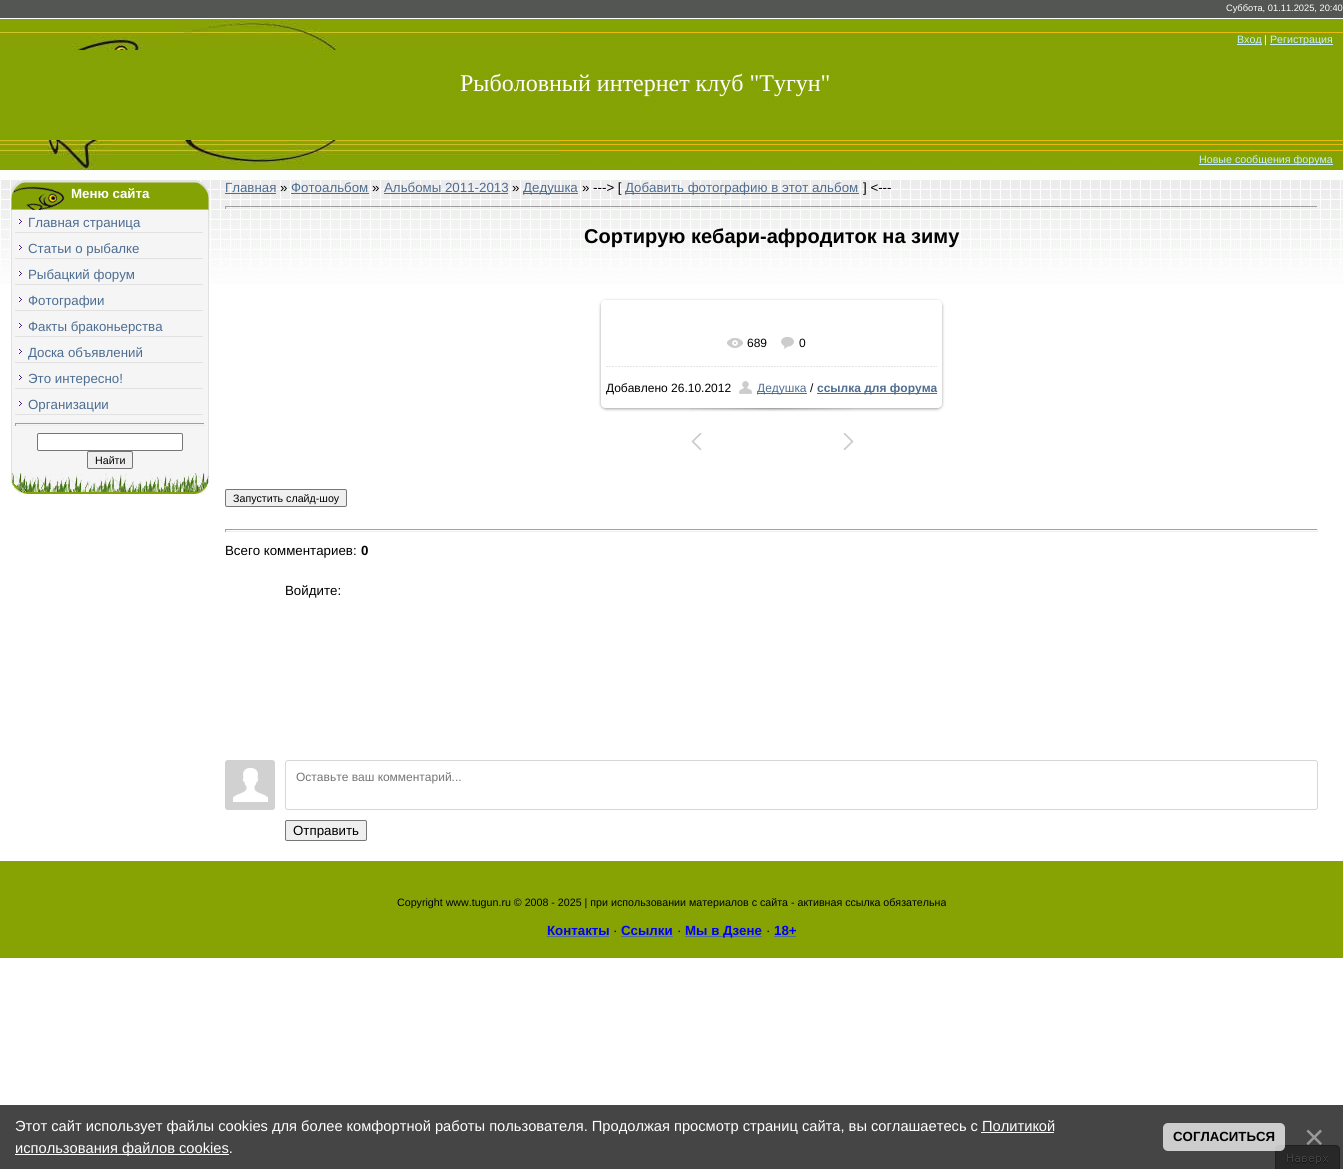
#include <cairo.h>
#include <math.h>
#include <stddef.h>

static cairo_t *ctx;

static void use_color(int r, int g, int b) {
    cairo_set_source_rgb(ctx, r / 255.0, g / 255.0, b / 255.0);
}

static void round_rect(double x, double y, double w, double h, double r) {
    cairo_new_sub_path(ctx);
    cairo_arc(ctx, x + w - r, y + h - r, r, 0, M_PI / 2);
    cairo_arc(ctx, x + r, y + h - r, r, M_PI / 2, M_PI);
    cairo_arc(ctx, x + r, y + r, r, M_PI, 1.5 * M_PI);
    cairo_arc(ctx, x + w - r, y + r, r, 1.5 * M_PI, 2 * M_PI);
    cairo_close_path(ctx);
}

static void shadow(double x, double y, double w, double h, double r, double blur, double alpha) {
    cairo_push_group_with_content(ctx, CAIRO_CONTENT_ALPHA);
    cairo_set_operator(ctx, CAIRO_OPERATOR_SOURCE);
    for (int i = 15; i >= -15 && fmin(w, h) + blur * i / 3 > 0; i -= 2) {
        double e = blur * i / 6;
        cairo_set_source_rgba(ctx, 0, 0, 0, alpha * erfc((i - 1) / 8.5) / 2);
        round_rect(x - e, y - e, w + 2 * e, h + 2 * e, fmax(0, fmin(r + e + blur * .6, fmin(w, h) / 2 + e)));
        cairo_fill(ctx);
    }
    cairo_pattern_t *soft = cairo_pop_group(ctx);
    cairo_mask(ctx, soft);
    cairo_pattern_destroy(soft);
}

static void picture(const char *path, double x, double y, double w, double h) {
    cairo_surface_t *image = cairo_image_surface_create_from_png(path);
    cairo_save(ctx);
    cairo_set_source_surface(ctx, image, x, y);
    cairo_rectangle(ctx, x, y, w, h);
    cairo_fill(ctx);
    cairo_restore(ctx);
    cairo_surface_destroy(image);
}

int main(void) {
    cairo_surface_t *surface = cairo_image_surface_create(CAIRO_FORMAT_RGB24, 1343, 1169);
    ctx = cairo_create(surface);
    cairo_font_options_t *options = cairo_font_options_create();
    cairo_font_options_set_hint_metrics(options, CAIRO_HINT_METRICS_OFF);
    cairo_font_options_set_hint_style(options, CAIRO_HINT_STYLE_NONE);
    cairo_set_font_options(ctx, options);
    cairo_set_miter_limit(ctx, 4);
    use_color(255, 255, 255);
    cairo_paint(ctx);
    use_color(69, 69, 69);
    cairo_rectangle(ctx, 0, 1105, 1343, 64);
    cairo_fill(ctx);
    picture("img1.png", 0, 0, 1343, 284);
    cairo_select_font_face(ctx, "Liberation Sans", CAIRO_FONT_SLANT_NORMAL, CAIRO_FONT_WEIGHT_NORMAL);
    cairo_set_font_size(ctx, 9.3);
    use_color(255, 255, 255);
    cairo_move_to(ctx, 1226, 11);
    cairo_show_text(ctx, "Суббота, 01.11.2025, 20:40");
    picture("img2.png", 0, 20, 560, 30);
    use_color(197, 240, 255);
    cairo_rectangle(ctx, 1237, 44, 25, 1);
    cairo_fill(ctx);
    cairo_set_font_size(ctx, 10.67);
    cairo_move_to(ctx, 1237, 43);
    cairo_show_text(ctx, "Вход");
    use_color(255, 255, 255);
    cairo_move_to(ctx, 1264, 43);
    cairo_show_text(ctx, "|");
    use_color(197, 240, 255);
    cairo_rectangle(ctx, 1270, 44, 63, 1);
    cairo_fill(ctx);
    cairo_move_to(ctx, 1270, 43);
    cairo_show_text(ctx, "Регистрация");
    cairo_select_font_face(ctx, "Liberation Serif", CAIRO_FONT_SLANT_NORMAL, CAIRO_FONT_WEIGHT_NORMAL);
    cairo_set_font_size(ctx, 24);
    use_color(255, 255, 255);
    cairo_move_to(ctx, 460, 91);
    cairo_show_text(ctx, "Рыболовный интернет клуб \"Тугун\"");
    picture("img3.png", 0, 140, 560, 30);
    use_color(197, 240, 255);
    cairo_rectangle(ctx, 1199, 164, 134, 1);
    cairo_fill(ctx);
    cairo_select_font_face(ctx, "Liberation Sans", CAIRO_FONT_SLANT_NORMAL, CAIRO_FONT_WEIGHT_NORMAL);
    cairo_set_font_size(ctx, 10.67);
    cairo_move_to(ctx, 1199, 163);
    cairo_show_text(ctx, "Новые сообщения форума");
    picture("img4.png", 11, 180, 198, 30);
    cairo_select_font_face(ctx, "Liberation Sans", CAIRO_FONT_SLANT_NORMAL, CAIRO_FONT_WEIGHT_BOLD);
    cairo_set_font_size(ctx, 13.3);
    use_color(255, 255, 255);
    cairo_move_to(ctx, 71, 198);
    cairo_show_text(ctx, "Меню сайта");
    picture("img5.png", 11, 210, 198, 284);
    picture("img6.png", 18, 219, 4, 5);
    use_color(225, 225, 225);
    cairo_rectangle(ctx, 15, 232, 188, 1);
    cairo_fill(ctx);
    cairo_select_font_face(ctx, "Liberation Sans", CAIRO_FONT_SLANT_NORMAL, CAIRO_FONT_WEIGHT_NORMAL);
    use_color(77, 109, 145);
    cairo_move_to(ctx, 28, 227);
    cairo_show_text(ctx, "Главная страница");
    picture("img6.png", 18, 245, 4, 5);
    use_color(225, 225, 225);
    cairo_rectangle(ctx, 15, 258, 188, 1);
    cairo_fill(ctx);
    use_color(77, 109, 145);
    cairo_move_to(ctx, 28, 253);
    cairo_show_text(ctx, "Статьи о рыбалке");
    picture("img6.png", 18, 271, 4, 5);
    use_color(225, 225, 225);
    cairo_rectangle(ctx, 15, 284, 188, 1);
    cairo_fill(ctx);
    use_color(77, 109, 145);
    cairo_move_to(ctx, 28, 279);
    cairo_show_text(ctx, "Рыбацкий форум");
    picture("img6.png", 18, 297, 4, 5);
    use_color(225, 225, 225);
    cairo_rectangle(ctx, 15, 310, 188, 1);
    cairo_fill(ctx);
    use_color(77, 109, 145);
    cairo_move_to(ctx, 28, 305);
    cairo_show_text(ctx, "Фотографии");
    picture("img6.png", 18, 323, 4, 5);
    use_color(225, 225, 225);
    cairo_rectangle(ctx, 15, 336, 188, 1);
    cairo_fill(ctx);
    use_color(77, 109, 145);
    cairo_move_to(ctx, 28, 331);
    cairo_show_text(ctx, "Факты браконьерства");
    picture("img6.png", 18, 349, 4, 5);
    use_color(225, 225, 225);
    cairo_rectangle(ctx, 15, 362, 188, 1);
    cairo_fill(ctx);
    use_color(77, 109, 145);
    cairo_move_to(ctx, 28, 357);
    cairo_show_text(ctx, "Доска объявлений");
    picture("img6.png", 18, 375, 4, 5);
    use_color(225, 225, 225);
    cairo_rectangle(ctx, 15, 388, 188, 1);
    cairo_fill(ctx);
    use_color(77, 109, 145);
    cairo_move_to(ctx, 28, 383);
    cairo_show_text(ctx, "Это интересно!");
    picture("img6.png", 18, 401, 4, 5);
    use_color(225, 225, 225);
    cairo_rectangle(ctx, 15, 414, 188, 1);
    cairo_fill(ctx);
    use_color(77, 109, 145);
    cairo_move_to(ctx, 28, 409);
    cairo_show_text(ctx, "Организации");
    use_color(159, 159, 159);
    cairo_rectangle(ctx, 15, 423, 190, 1);
    cairo_fill(ctx);
    use_color(238, 238, 238);
    cairo_rectangle(ctx, 204, 423, 1, 3);
    cairo_fill(ctx);
    cairo_rectangle(ctx, 15, 425, 190, 1);
    cairo_fill(ctx);
    use_color(159, 159, 159);
    cairo_rectangle(ctx, 15, 423, 1, 3);
    cairo_fill(ctx);
    use_color(255, 255, 255);
    round_rect(37.5, 433.5, 145, 17, 1.5);
    cairo_fill_preserve(ctx);
    use_color(118, 118, 118);
    cairo_set_line_width(ctx, 1);
    cairo_stroke(ctx);
    use_color(239, 239, 239);
    round_rect(87.5, 451.5, 45, 17, 1.5);
    cairo_fill_preserve(ctx);
    use_color(118, 118, 118);
    cairo_stroke(ctx);
    cairo_set_font_size(ctx, 10.67);
    use_color(0, 0, 0);
    cairo_move_to(ctx, 95, 464);
    cairo_show_text(ctx, "Найти");
    cairo_set_font_size(ctx, 13.3);
    use_color(77, 109, 145);
    cairo_move_to(ctx, 225, 192);
    cairo_show_text(ctx, "Главная");
    cairo_rectangle(ctx, 225, 193, 51, 1);
    cairo_fill(ctx);
    use_color(0, 0, 0);
    cairo_move_to(ctx, 280, 192);
    cairo_show_text(ctx, "»");
    use_color(77, 109, 145);
    cairo_move_to(ctx, 291, 192);
    cairo_show_text(ctx, "Фотоальбом");
    cairo_rectangle(ctx, 291, 193, 78, 1);
    cairo_fill(ctx);
    use_color(0, 0, 0);
    cairo_move_to(ctx, 372, 192);
    cairo_show_text(ctx, "»");
    use_color(77, 109, 145);
    cairo_move_to(ctx, 384, 192);
    cairo_show_text(ctx, "Альбомы 2011-2013");
    cairo_rectangle(ctx, 384, 193, 124, 1);
    cairo_fill(ctx);
    use_color(0, 0, 0);
    cairo_move_to(ctx, 512, 192);
    cairo_show_text(ctx, "»");
    use_color(77, 109, 145);
    cairo_rectangle(ctx, 523, 193, 55, 1);
    cairo_fill(ctx);
    cairo_move_to(ctx, 523, 192);
    cairo_show_text(ctx, "Дедушка");
    use_color(0, 0, 0);
    cairo_move_to(ctx, 582, 192);
    cairo_show_text(ctx, "» ---> [");
    use_color(77, 109, 145);
    cairo_rectangle(ctx, 625, 193, 234, 1);
    cairo_fill(ctx);
    cairo_move_to(ctx, 625, 192);
    cairo_show_text(ctx, "Добавить фотографию в этот альбом");
    use_color(0, 0, 0);
    cairo_move_to(ctx, 863, 192);
    cairo_show_text(ctx, "] <---");
    use_color(159, 159, 159);
    cairo_rectangle(ctx, 225, 206, 1093, 1);
    cairo_fill(ctx);
    use_color(238, 238, 238);
    cairo_rectangle(ctx, 1317, 206, 1, 3);
    cairo_fill(ctx);
    cairo_rectangle(ctx, 225, 208, 1093, 1);
    cairo_fill(ctx);
    use_color(159, 159, 159);
    cairo_rectangle(ctx, 225, 206, 1, 3);
    cairo_fill(ctx);
    cairo_select_font_face(ctx, "Liberation Sans", CAIRO_FONT_SLANT_NORMAL, CAIRO_FONT_WEIGHT_BOLD);
    cairo_set_font_size(ctx, 20);
    use_color(0, 0, 0);
    cairo_move_to(ctx, 584, 243);
    cairo_show_text(ctx, "Сортирую кебари-афродиток на зиму");
    cairo_save(ctx);
    cairo_set_fill_rule(ctx, CAIRO_FILL_RULE_EVEN_ODD);
    cairo_new_path(ctx);
    cairo_move_to(ctx, 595, 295);
    cairo_line_to(ctx, 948, 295);
    cairo_line_to(ctx, 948, 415);
    cairo_line_to(ctx, 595, 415);
    cairo_close_path(ctx);
    cairo_move_to(ctx, 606, 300);
    cairo_line_to(ctx, 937, 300);
    cairo_curve_to(ctx, 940, 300, 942, 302, 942, 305);
    cairo_line_to(ctx, 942, 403);
    cairo_curve_to(ctx, 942, 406, 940, 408, 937, 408);
    cairo_line_to(ctx, 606, 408);
    cairo_curve_to(ctx, 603, 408, 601, 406, 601, 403);
    cairo_line_to(ctx, 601, 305);
    cairo_curve_to(ctx, 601, 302, 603, 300, 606, 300);
    cairo_close_path(ctx);
    cairo_clip(ctx);
    use_color(0, 0, 0);
    shadow(601, 301, 341, 108, 5, 1.5, 0.37);
    cairo_restore(ctx);
    picture("img7.png", 727, 338, 16, 10);
    cairo_select_font_face(ctx, "Liberation Sans", CAIRO_FONT_SLANT_NORMAL, CAIRO_FONT_WEIGHT_NORMAL);
    cairo_set_font_size(ctx, 12);
    cairo_move_to(ctx, 747, 347);
    cairo_show_text(ctx, "689");
    picture("img8.png", 781, 337, 13, 12);
    cairo_move_to(ctx, 799, 347);
    cairo_show_text(ctx, "0");
    picture("img9.png", 606, 366, 331, 1);
    cairo_move_to(ctx, 606, 392);
    cairo_show_text(ctx, "Добавлено 26.10.2012");
    picture("img10.png", 739, 381, 13, 13);
    use_color(77, 109, 145);
    cairo_rectangle(ctx, 757, 393, 50, 1);
    cairo_fill(ctx);
    cairo_move_to(ctx, 757, 392);
    cairo_show_text(ctx, "Дедушка");
    use_color(0, 0, 0);
    cairo_move_to(ctx, 810, 392);
    cairo_show_text(ctx, "/");
    use_color(77, 109, 145);
    cairo_rectangle(ctx, 817, 393, 120, 1);
    cairo_fill(ctx);
    cairo_select_font_face(ctx, "Liberation Sans", CAIRO_FONT_SLANT_NORMAL, CAIRO_FONT_WEIGHT_BOLD);
    cairo_move_to(ctx, 817, 392);
    cairo_show_text(ctx, "ссылка для форума");
    picture("img11.png", 691, 408, 161, 3);
    picture("img12.png", 691, 433, 11, 17);
    picture("img13.png", 843, 433, 11, 17);
    use_color(239, 239, 239);
    round_rect(225.5, 489.5, 121, 17, 1.5);
    cairo_fill_preserve(ctx);
    use_color(118, 118, 118);
    cairo_stroke(ctx);
    cairo_select_font_face(ctx, "Liberation Sans", CAIRO_FONT_SLANT_NORMAL, CAIRO_FONT_WEIGHT_NORMAL);
    cairo_set_font_size(ctx, 10.67);
    use_color(0, 0, 0);
    cairo_move_to(ctx, 233, 502);
    cairo_show_text(ctx, "Запустить слайд-шоу");
    use_color(159, 159, 159);
    cairo_rectangle(ctx, 225, 529, 1093, 1);
    cairo_fill(ctx);
    use_color(238, 238, 238);
    cairo_rectangle(ctx, 1317, 529, 1, 3);
    cairo_fill(ctx);
    cairo_rectangle(ctx, 225, 531, 1093, 1);
    cairo_fill(ctx);
    use_color(159, 159, 159);
    cairo_rectangle(ctx, 225, 529, 1, 3);
    cairo_fill(ctx);
    cairo_set_font_size(ctx, 13.3);
    use_color(0, 0, 0);
    cairo_move_to(ctx, 225, 555);
    cairo_show_text(ctx, "Всего комментариев:");
    cairo_select_font_face(ctx, "Liberation Sans", CAIRO_FONT_SLANT_NORMAL, CAIRO_FONT_WEIGHT_BOLD);
    cairo_move_to(ctx, 361, 555);
    cairo_show_text(ctx, "0");
    cairo_select_font_face(ctx, "Liberation Sans", CAIRO_FONT_SLANT_NORMAL, CAIRO_FONT_WEIGHT_NORMAL);
    cairo_move_to(ctx, 285, 595);
    cairo_show_text(ctx, "Войдите:");
    picture("img14.png", 225, 760, 50, 50);
    round_rect(285.5, 760.5, 1032, 49, 2.5);
    use_color(214, 214, 214);
    cairo_stroke(ctx);
    cairo_set_font_size(ctx, 12);
    use_color(117, 117, 117);
    cairo_move_to(ctx, 296, 781);
    cairo_show_text(ctx, "Оставьте ваш комментарий...");
    use_color(239, 239, 239);
    round_rect(285.5, 820.5, 81, 20, 1.5);
    cairo_fill_preserve(ctx);
    use_color(118, 118, 118);
    cairo_stroke(ctx);
    cairo_set_font_size(ctx, 13.3);
    use_color(0, 0, 0);
    cairo_move_to(ctx, 293, 835);
    cairo_show_text(ctx, "Отправить");
    use_color(135, 163, 3);
    cairo_rectangle(ctx, 0, 861, 1343, 97);
    cairo_fill(ctx);
    cairo_set_font_size(ctx, 10.67);
    use_color(0, 0, 0);
    cairo_move_to(ctx, 397, 906);
    cairo_show_text(ctx, "Copyright www.tugun.ru © 2008 - 2025 | при использовании материалов с сайта - активная ссылка обязательна");
    cairo_select_font_face(ctx, "Liberation Sans", CAIRO_FONT_SLANT_NORMAL, CAIRO_FONT_WEIGHT_BOLD);
    cairo_set_font_size(ctx, 13.3);
    use_color(0, 0, 255);
    cairo_move_to(ctx, 547, 935);
    cairo_show_text(ctx, "Контакты");
    use_color(77, 109, 145);
    cairo_rectangle(ctx, 547, 936, 62, 1);
    cairo_fill(ctx);
    cairo_select_font_face(ctx, "Liberation Sans", CAIRO_FONT_SLANT_NORMAL, CAIRO_FONT_WEIGHT_NORMAL);
    use_color(0, 0, 0);
    cairo_move_to(ctx, 613, 935);
    cairo_show_text(ctx, "·");
    cairo_select_font_face(ctx, "Liberation Sans", CAIRO_FONT_SLANT_NORMAL, CAIRO_FONT_WEIGHT_BOLD);
    use_color(0, 0, 255);
    cairo_move_to(ctx, 621, 935);
    cairo_show_text(ctx, "Ссылки");
    use_color(77, 109, 145);
    cairo_rectangle(ctx, 621, 936, 52, 1);
    cairo_fill(ctx);
    cairo_select_font_face(ctx, "Liberation Sans", CAIRO_FONT_SLANT_NORMAL, CAIRO_FONT_WEIGHT_NORMAL);
    use_color(0, 0, 0);
    cairo_move_to(ctx, 677, 935);
    cairo_show_text(ctx, "·");
    use_color(77, 109, 145);
    cairo_rectangle(ctx, 685, 936, 77, 1);
    cairo_fill(ctx);
    cairo_select_font_face(ctx, "Liberation Sans", CAIRO_FONT_SLANT_NORMAL, CAIRO_FONT_WEIGHT_BOLD);
    use_color(0, 0, 255);
    cairo_move_to(ctx, 685, 935);
    cairo_show_text(ctx, "Мы в Дзене");
    cairo_select_font_face(ctx, "Liberation Sans", CAIRO_FONT_SLANT_NORMAL, CAIRO_FONT_WEIGHT_NORMAL);
    use_color(0, 0, 0);
    cairo_move_to(ctx, 766, 935);
    cairo_show_text(ctx, "·");
    cairo_select_font_face(ctx, "Liberation Sans", CAIRO_FONT_SLANT_NORMAL, CAIRO_FONT_WEIGHT_BOLD);
    use_color(0, 0, 255);
    cairo_move_to(ctx, 774, 935);
    cairo_show_text(ctx, "18+");
    use_color(77, 109, 145);
    cairo_rectangle(ctx, 774, 936, 22, 1);
    cairo_fill(ctx);
    cairo_select_font_face(ctx, "Liberation Sans", CAIRO_FONT_SLANT_NORMAL, CAIRO_FONT_WEIGHT_NORMAL);
    cairo_set_font_size(ctx, 14.67);
    use_color(255, 255, 255);
    cairo_move_to(ctx, 15, 1131);
    cairo_show_text(ctx, "Этот сайт использует файлы cookies для более комфортной работы пользователя. Продолжая просмотр страниц сайта, вы соглашаетесь с Политикой");
    cairo_rectangle(ctx, 15, 1154, 214, 1);
    cairo_fill(ctx);
    cairo_move_to(ctx, 15, 1153);
    cairo_show_text(ctx, "использования файлов cookies.");
    cairo_rectangle(ctx, 981, 1132, 73, 1);
    cairo_fill(ctx);
    picture("img15.png", 1275, 1145, 65, 24);
    cairo_set_source_rgba(ctx, 1, 1, 1, 0.73);
    round_rect(1163, 1123, 122, 28, 5);
    cairo_fill(ctx);
    cairo_select_font_face(ctx, "Liberation Sans", CAIRO_FONT_SLANT_NORMAL, CAIRO_FONT_WEIGHT_BOLD);
    cairo_set_font_size(ctx, 13.25);
    use_color(0, 0, 0);
    cairo_move_to(ctx, 1173, 1141);
    cairo_show_text(ctx, "СОГЛАСИТЬСЯ");
    cairo_select_font_face(ctx, "Liberation Sans", CAIRO_FONT_SLANT_NORMAL, CAIRO_FONT_WEIGHT_NORMAL);
    cairo_set_font_size(ctx, 35);
    use_color(153, 153, 153);
    cairo_move_to(ctx, 1304, 1149);
    cairo_show_text(ctx, "×");
    cairo_surface_write_to_png(surface, "result.png");
    cairo_font_options_destroy(options);
    cairo_destroy(ctx);
    cairo_surface_destroy(surface);
    return 0;
}
